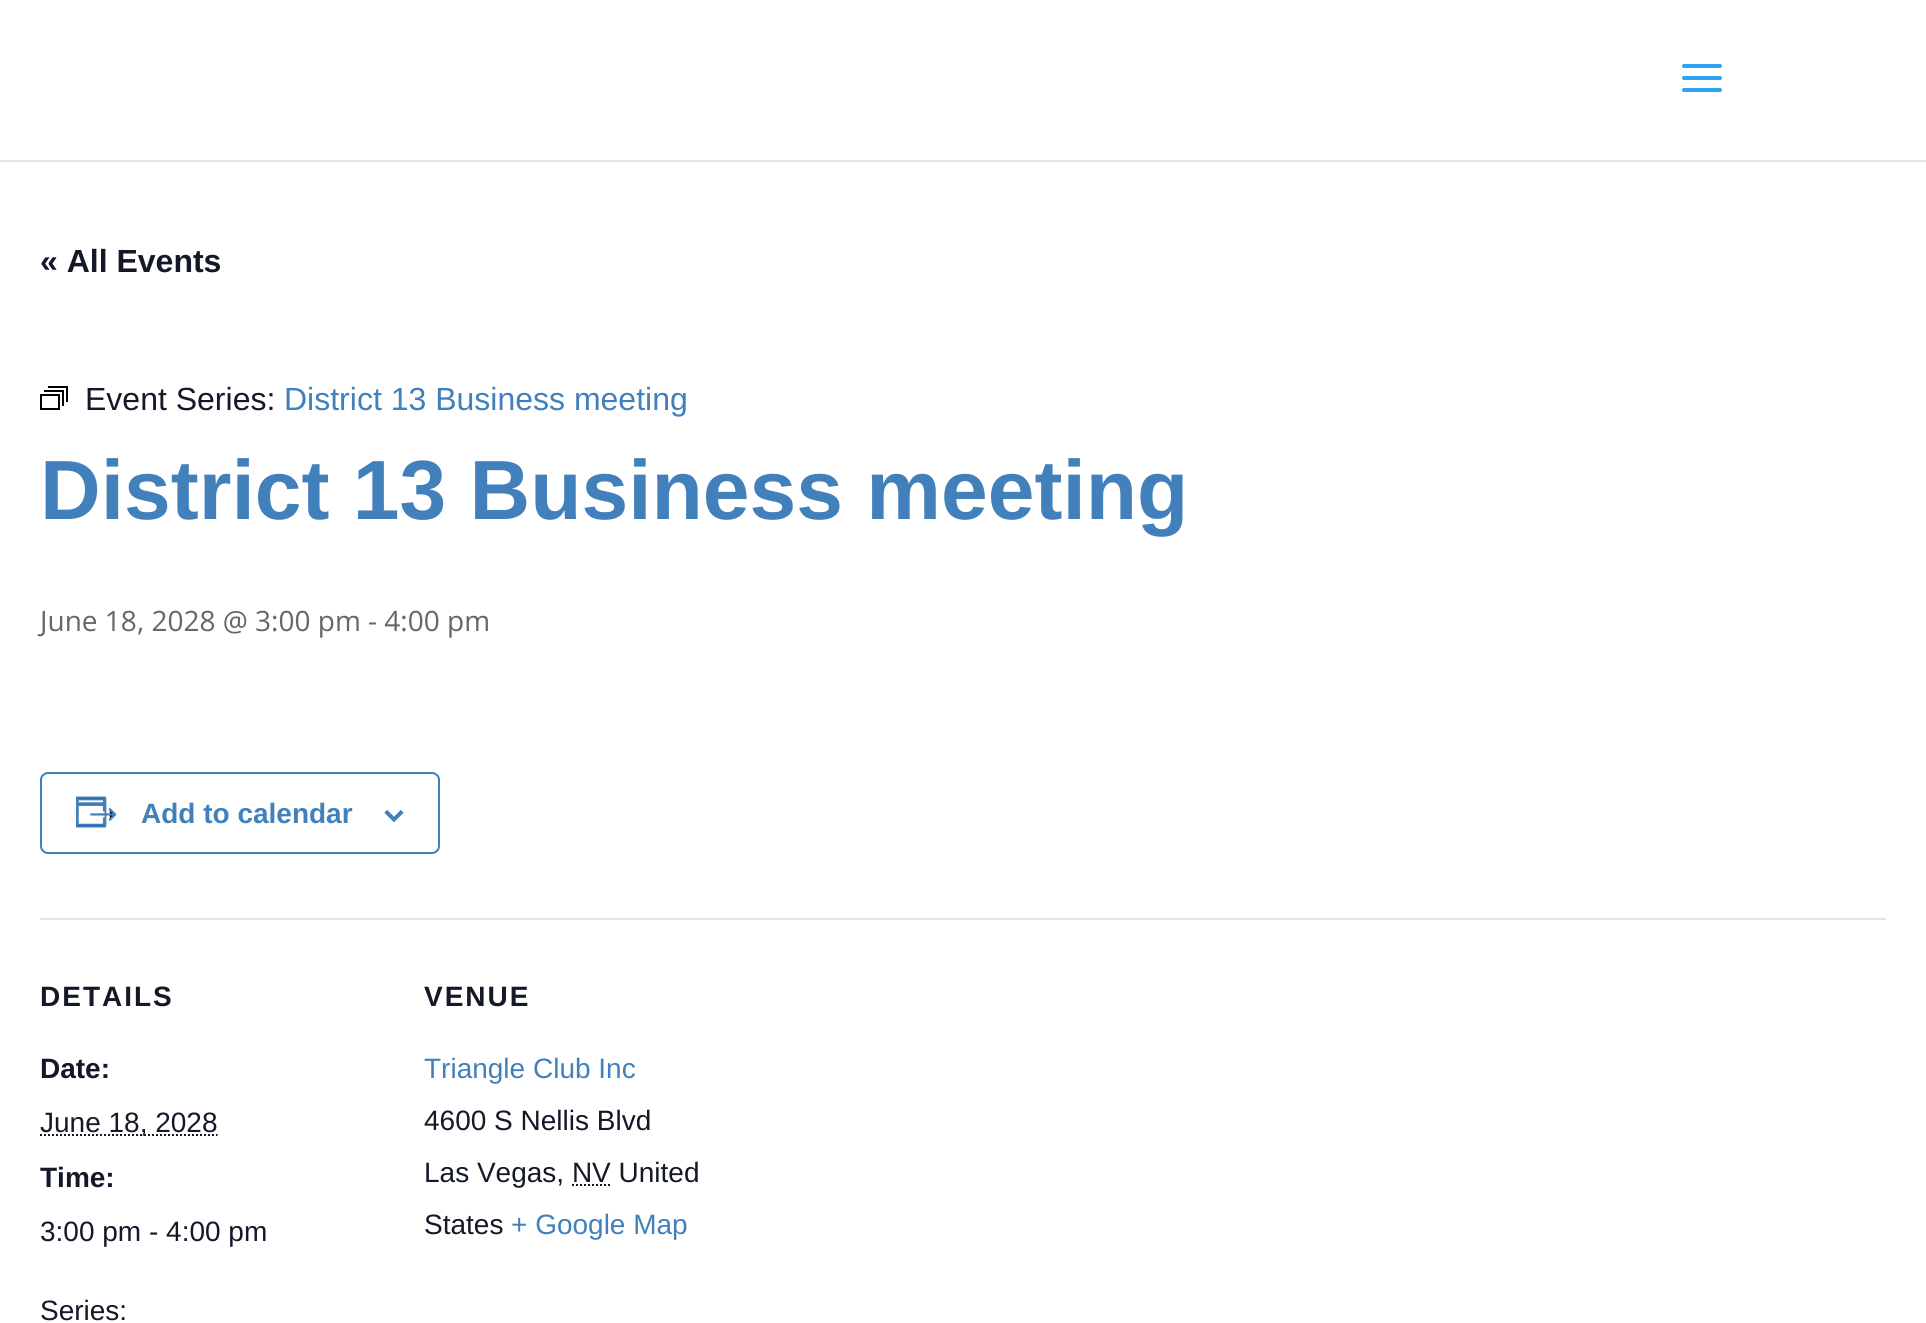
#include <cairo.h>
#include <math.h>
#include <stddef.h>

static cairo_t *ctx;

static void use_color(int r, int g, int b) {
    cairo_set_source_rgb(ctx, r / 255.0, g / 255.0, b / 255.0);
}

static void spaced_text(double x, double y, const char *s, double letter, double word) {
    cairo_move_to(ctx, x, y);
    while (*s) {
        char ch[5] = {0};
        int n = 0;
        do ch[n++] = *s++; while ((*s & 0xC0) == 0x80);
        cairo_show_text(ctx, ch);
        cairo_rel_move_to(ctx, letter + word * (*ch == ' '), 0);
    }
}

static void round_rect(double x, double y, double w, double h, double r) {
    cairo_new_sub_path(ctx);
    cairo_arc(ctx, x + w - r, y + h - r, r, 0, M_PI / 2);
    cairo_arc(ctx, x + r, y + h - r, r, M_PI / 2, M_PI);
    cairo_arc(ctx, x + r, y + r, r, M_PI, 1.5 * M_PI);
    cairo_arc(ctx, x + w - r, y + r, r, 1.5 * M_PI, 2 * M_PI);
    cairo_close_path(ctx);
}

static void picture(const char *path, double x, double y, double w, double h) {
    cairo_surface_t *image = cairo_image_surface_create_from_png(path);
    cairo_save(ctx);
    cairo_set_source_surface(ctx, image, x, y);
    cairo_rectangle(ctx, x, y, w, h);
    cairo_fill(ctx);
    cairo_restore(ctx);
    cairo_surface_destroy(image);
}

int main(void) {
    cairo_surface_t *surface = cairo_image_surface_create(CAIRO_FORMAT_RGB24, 1926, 1323);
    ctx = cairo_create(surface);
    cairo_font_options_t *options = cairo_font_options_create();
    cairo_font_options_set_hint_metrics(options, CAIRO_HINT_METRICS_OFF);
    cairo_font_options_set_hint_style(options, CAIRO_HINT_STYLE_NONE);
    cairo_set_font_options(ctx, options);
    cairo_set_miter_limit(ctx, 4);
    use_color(255, 255, 255);
    cairo_paint(ctx);
    use_color(230, 230, 230);
    cairo_rectangle(ctx, 0, 160, 1926, 2);
    cairo_fill(ctx);
    picture("img1.png", 1682, 64, 40, 28);
    cairo_select_font_face(ctx, "Liberation Sans", CAIRO_FONT_SLANT_NORMAL, CAIRO_FONT_WEIGHT_BOLD);
    cairo_set_font_size(ctx, 32);
    use_color(20, 24, 39);
    cairo_move_to(ctx, 40, 272);
    cairo_show_text(ctx, "« All Events");
    cairo_rectangle(ctx, 41, 395, 18, 14);
    use_color(0, 0, 0);
    cairo_stroke(ctx);
    cairo_new_path(ctx);
    cairo_move_to(ctx, 44, 391);
    cairo_line_to(ctx, 63, 391);
    cairo_line_to(ctx, 63, 406);
    cairo_move_to(ctx, 48, 387);
    cairo_line_to(ctx, 67, 387);
    cairo_line_to(ctx, 67, 402);
    cairo_stroke(ctx);
    cairo_select_font_face(ctx, "Liberation Sans", CAIRO_FONT_SLANT_NORMAL, CAIRO_FONT_WEIGHT_NORMAL);
    use_color(20, 24, 39);
    cairo_move_to(ctx, 85, 410);
    cairo_show_text(ctx, "Event Series:");
    use_color(65, 128, 187);
    cairo_move_to(ctx, 284, 410);
    cairo_show_text(ctx, "District 13 Business meeting");
    cairo_select_font_face(ctx, "Liberation Sans", CAIRO_FONT_SLANT_NORMAL, CAIRO_FONT_WEIGHT_BOLD);
    cairo_set_font_size(ctx, 84);
    cairo_move_to(ctx, 40, 519);
    cairo_show_text(ctx, "District 13 Business meeting");
    cairo_select_font_face(ctx, "Open Sans", CAIRO_FONT_SLANT_NORMAL, CAIRO_FONT_WEIGHT_NORMAL);
    cairo_set_font_size(ctx, 28);
    use_color(102, 102, 102);
    cairo_move_to(ctx, 40, 631);
    cairo_show_text(ctx, "June 18, 2028 @ 3:00 pm - 4:00 pm");
    round_rect(41, 773, 398, 80, 7);
    use_color(65, 128, 187);
    cairo_stroke(ctx);
    picture("img2.png", 76, 796, 41, 32);
    cairo_select_font_face(ctx, "Liberation Sans", CAIRO_FONT_SLANT_NORMAL, CAIRO_FONT_WEIGHT_BOLD);
    cairo_move_to(ctx, 141, 823);
    cairo_show_text(ctx, "Add to calendar");
    picture("img3.png", 384, 810, 20, 12);
    use_color(228, 228, 228);
    cairo_rectangle(ctx, 40, 918, 1846, 2);
    cairo_fill(ctx);
    use_color(20, 24, 39);
    spaced_text(40, 1006, "DETAILS", 2, 0);
    cairo_move_to(ctx, 40, 1078);
    cairo_show_text(ctx, "Date:");
    cairo_new_path(ctx);
    cairo_move_to(ctx, 40, 1135);
    cairo_line_to(ctx, 217.5, 1135);
    cairo_set_dash(ctx, (double[]){2, 2}, 2, 0);
    cairo_stroke(ctx);
    cairo_select_font_face(ctx, "Liberation Sans", CAIRO_FONT_SLANT_NORMAL, CAIRO_FONT_WEIGHT_NORMAL);
    cairo_move_to(ctx, 40, 1132);
    cairo_show_text(ctx, "June 18, 2028");
    cairo_select_font_face(ctx, "Liberation Sans", CAIRO_FONT_SLANT_NORMAL, CAIRO_FONT_WEIGHT_BOLD);
    cairo_move_to(ctx, 40, 1187);
    cairo_show_text(ctx, "Time:");
    cairo_select_font_face(ctx, "Liberation Sans", CAIRO_FONT_SLANT_NORMAL, CAIRO_FONT_WEIGHT_NORMAL);
    cairo_move_to(ctx, 40, 1241);
    cairo_show_text(ctx, "3:00 pm - 4:00 pm");
    cairo_move_to(ctx, 40, 1320);
    cairo_show_text(ctx, "Series:");
    cairo_select_font_face(ctx, "Liberation Sans", CAIRO_FONT_SLANT_NORMAL, CAIRO_FONT_WEIGHT_BOLD);
    spaced_text(424, 1006, "VENUE", 2, 0);
    cairo_select_font_face(ctx, "Liberation Sans", CAIRO_FONT_SLANT_NORMAL, CAIRO_FONT_WEIGHT_NORMAL);
    use_color(65, 128, 187);
    cairo_move_to(ctx, 424, 1078);
    cairo_show_text(ctx, "Triangle Club Inc");
    use_color(20, 24, 39);
    cairo_move_to(ctx, 424, 1130);
    cairo_show_text(ctx, "4600 S Nellis Blvd");
    cairo_move_to(ctx, 424, 1182);
    cairo_show_text(ctx, "Las Vegas, NV United");
    cairo_new_path(ctx);
    cairo_move_to(ctx, 572, 1185);
    cairo_line_to(ctx, 611, 1185);
    cairo_stroke(ctx);
    cairo_move_to(ctx, 424, 1234);
    cairo_show_text(ctx, "States");
    use_color(65, 128, 187);
    cairo_move_to(ctx, 511, 1234);
    cairo_show_text(ctx, "+ Google Map");
    cairo_surface_write_to_png(surface, "result.png");
    cairo_font_options_destroy(options);
    cairo_destroy(ctx);
    cairo_surface_destroy(surface);
    return 0;
}
